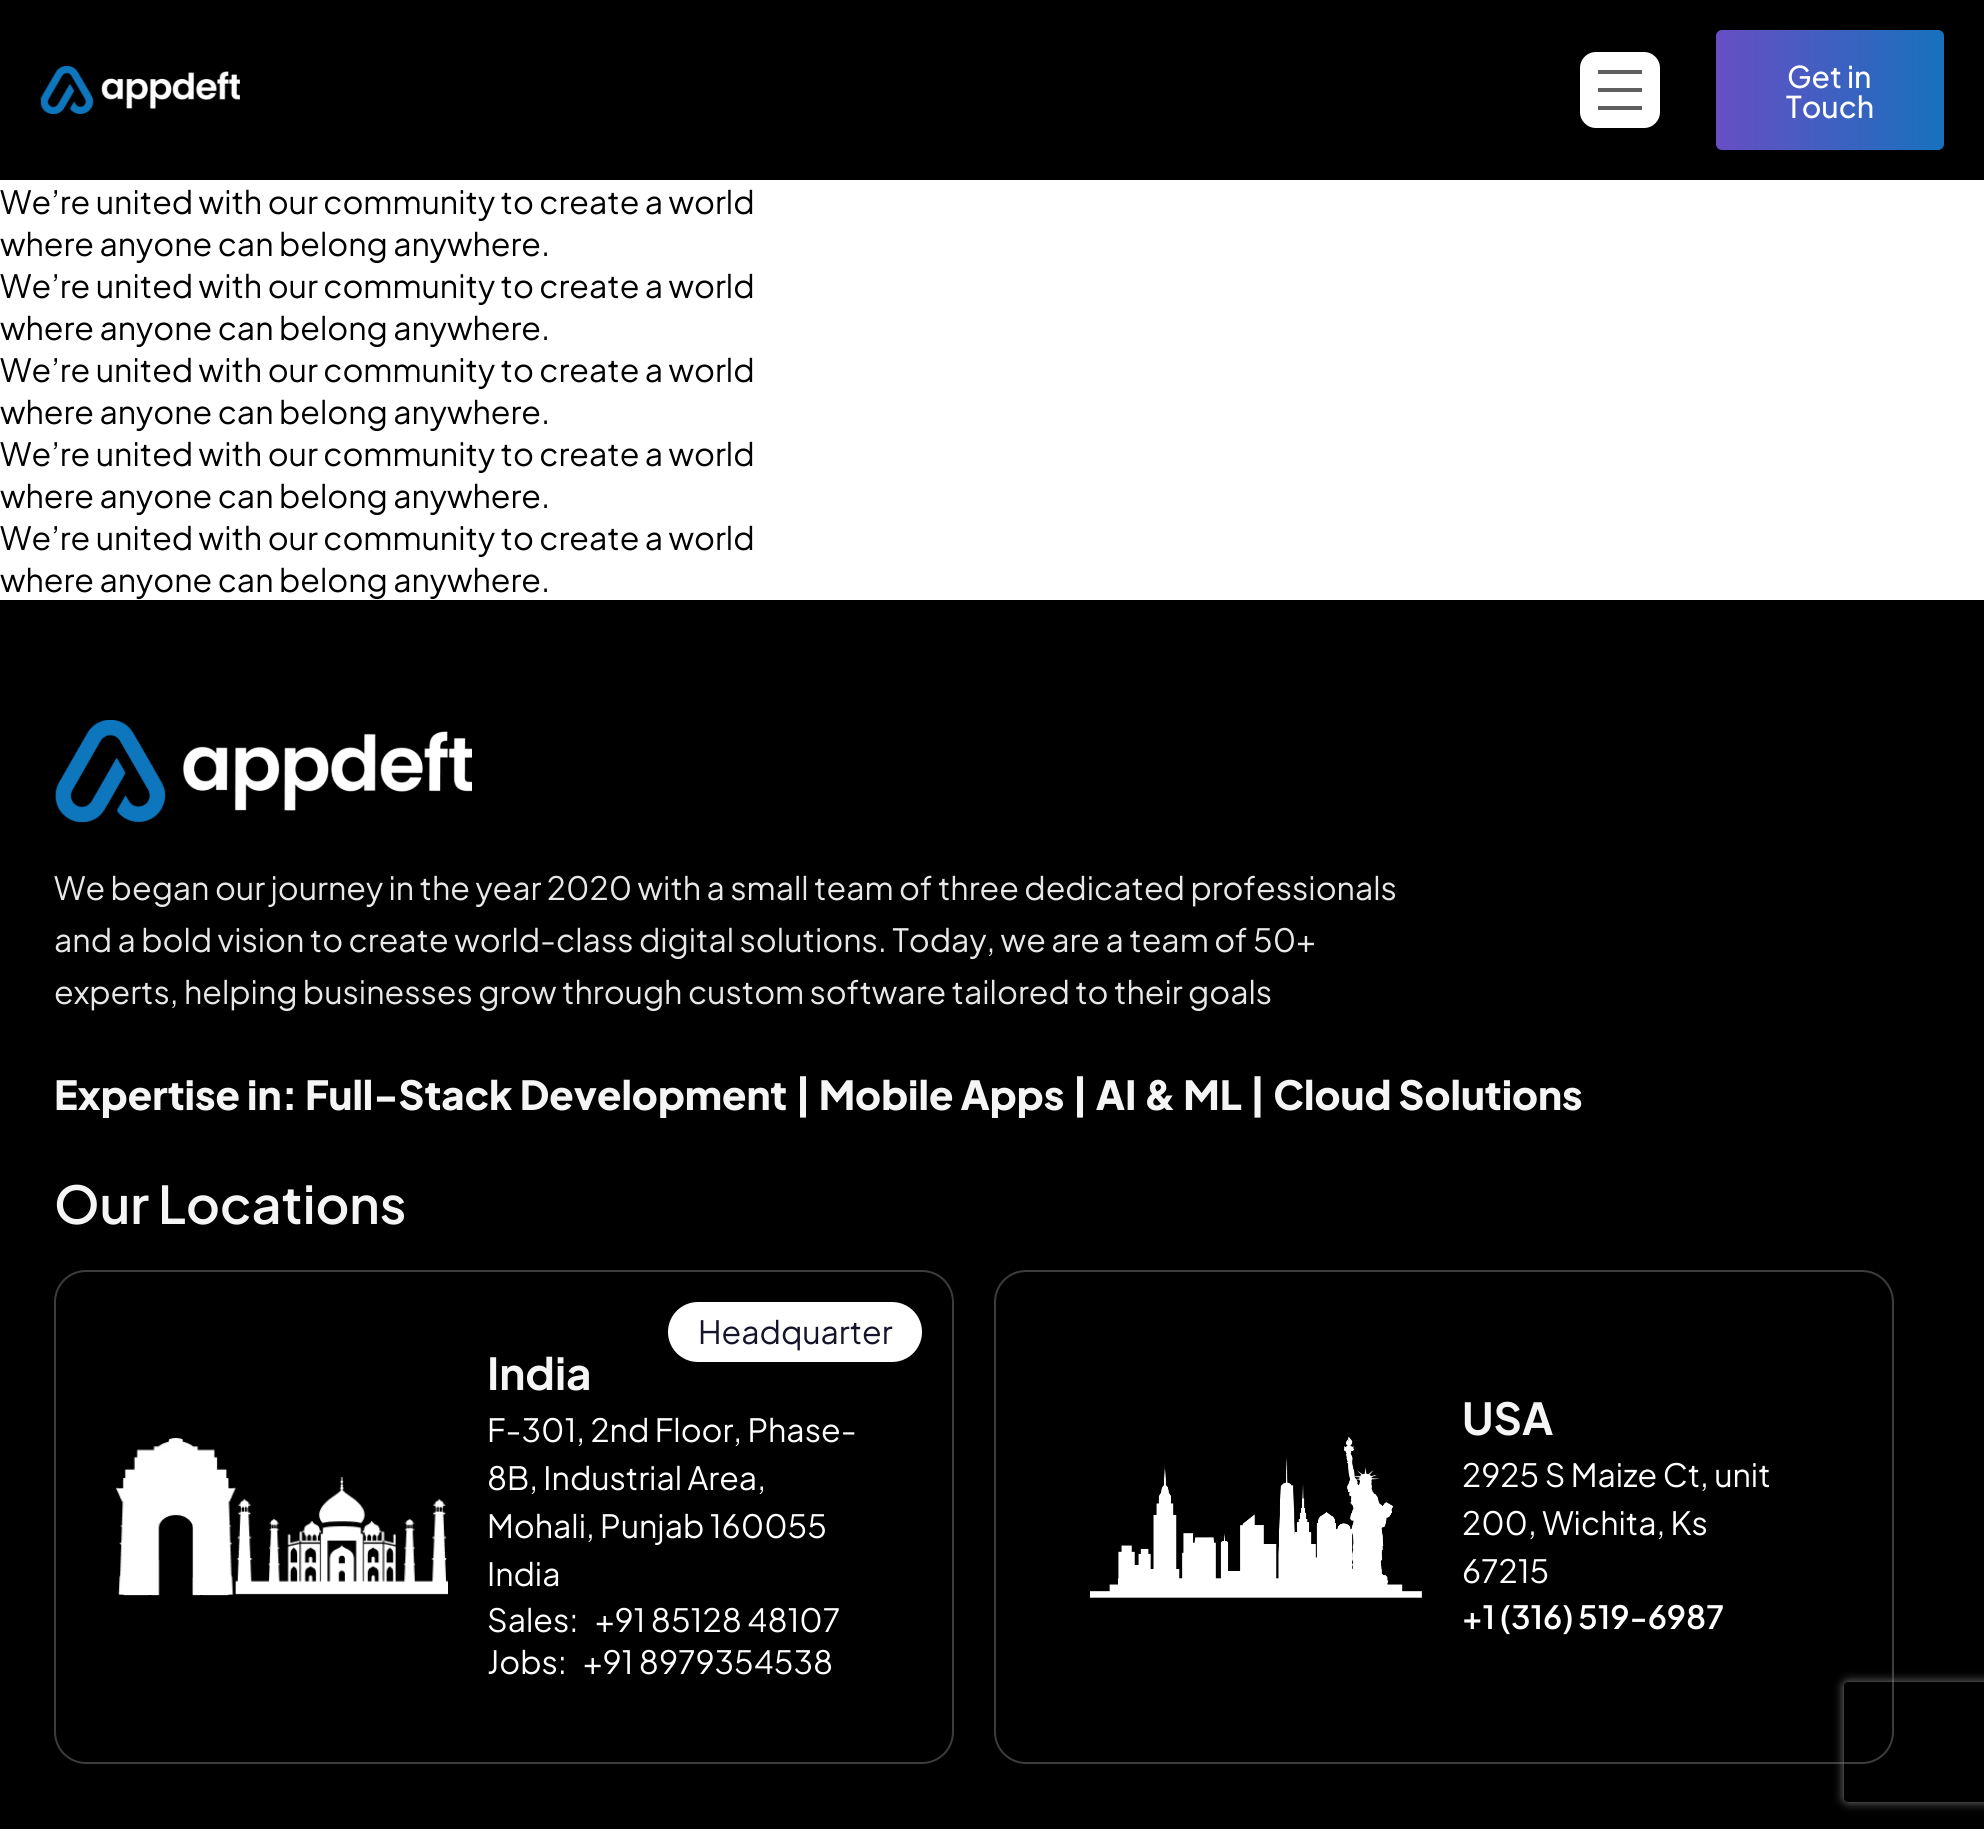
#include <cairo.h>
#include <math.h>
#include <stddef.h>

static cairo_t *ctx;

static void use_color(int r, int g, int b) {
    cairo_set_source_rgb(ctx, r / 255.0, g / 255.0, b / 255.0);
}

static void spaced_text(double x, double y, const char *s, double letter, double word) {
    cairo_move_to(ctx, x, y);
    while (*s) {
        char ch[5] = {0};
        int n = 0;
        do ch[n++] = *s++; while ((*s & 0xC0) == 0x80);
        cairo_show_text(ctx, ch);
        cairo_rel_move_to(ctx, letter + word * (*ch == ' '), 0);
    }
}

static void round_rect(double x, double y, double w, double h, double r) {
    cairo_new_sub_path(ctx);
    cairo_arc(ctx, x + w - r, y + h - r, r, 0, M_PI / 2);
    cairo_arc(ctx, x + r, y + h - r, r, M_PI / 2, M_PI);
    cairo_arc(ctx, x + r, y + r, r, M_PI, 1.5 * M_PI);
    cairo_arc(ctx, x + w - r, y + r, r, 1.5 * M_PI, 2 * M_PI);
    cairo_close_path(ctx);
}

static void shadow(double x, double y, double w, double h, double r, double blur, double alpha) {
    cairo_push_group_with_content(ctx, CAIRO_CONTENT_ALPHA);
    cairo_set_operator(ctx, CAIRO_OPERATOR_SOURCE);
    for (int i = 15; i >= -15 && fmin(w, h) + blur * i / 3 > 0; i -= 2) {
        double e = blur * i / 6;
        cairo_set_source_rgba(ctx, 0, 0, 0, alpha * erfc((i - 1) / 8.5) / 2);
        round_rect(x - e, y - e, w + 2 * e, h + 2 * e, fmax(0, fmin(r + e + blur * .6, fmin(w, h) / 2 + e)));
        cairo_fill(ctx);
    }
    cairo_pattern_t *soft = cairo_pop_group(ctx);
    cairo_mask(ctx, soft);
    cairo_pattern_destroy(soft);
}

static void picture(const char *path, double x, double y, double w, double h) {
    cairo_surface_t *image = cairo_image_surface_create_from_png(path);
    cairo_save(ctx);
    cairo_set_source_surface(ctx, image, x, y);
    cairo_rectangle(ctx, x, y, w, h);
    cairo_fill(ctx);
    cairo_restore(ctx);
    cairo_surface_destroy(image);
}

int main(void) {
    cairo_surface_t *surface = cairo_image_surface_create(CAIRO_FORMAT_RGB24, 1984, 1829);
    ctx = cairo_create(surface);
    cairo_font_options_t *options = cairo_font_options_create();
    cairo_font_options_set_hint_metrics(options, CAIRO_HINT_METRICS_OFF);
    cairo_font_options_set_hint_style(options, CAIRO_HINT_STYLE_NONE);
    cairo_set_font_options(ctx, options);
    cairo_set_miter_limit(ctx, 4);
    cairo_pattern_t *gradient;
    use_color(255, 255, 255);
    cairo_paint(ctx);
    use_color(0, 0, 0);
    cairo_rectangle(ctx, 0, 0, 1984, 180);
    cairo_fill(ctx);
    picture("img1.png", 40, 66, 200, 48);
    use_color(255, 255, 255);
    round_rect(1580, 52, 80, 76, 16);
    cairo_fill(ctx);
    use_color(95, 95, 95);
    cairo_rectangle(ctx, 1598, 70, 44, 4);
    cairo_fill(ctx);
    cairo_rectangle(ctx, 1598, 88, 44, 4);
    cairo_fill(ctx);
    cairo_rectangle(ctx, 1598, 106, 44, 4);
    cairo_fill(ctx);
    gradient = cairo_pattern_create_linear(1716, 90, 1944, 90);
    cairo_pattern_add_color_stop_rgba(gradient, 0, 0.408, 0.306, 0.769, 1);
    cairo_pattern_add_color_stop_rgba(gradient, 1, 0.09, 0.443, 0.741, 1);
    cairo_set_source(ctx, gradient);
    cairo_pattern_destroy(gradient);
    round_rect(1716, 30, 228, 120, 6);
    cairo_fill(ctx);
    cairo_select_font_face(ctx, "Plus Jakarta Sans Medium", CAIRO_FONT_SLANT_NORMAL, CAIRO_FONT_WEIGHT_NORMAL);
    cairo_set_font_size(ctx, 30);
    use_color(255, 255, 255);
    cairo_move_to(ctx, 1787, 88);
    cairo_show_text(ctx, "Get in");
    cairo_move_to(ctx, 1786, 118);
    cairo_show_text(ctx, "Touch");
    cairo_select_font_face(ctx, "Plus Jakarta Sans", CAIRO_FONT_SLANT_NORMAL, CAIRO_FONT_WEIGHT_NORMAL);
    cairo_set_font_size(ctx, 32);
    use_color(0, 0, 0);
    cairo_move_to(ctx, 0, 214);
    cairo_show_text(ctx, "We’re united with our community to create a world");
    cairo_move_to(ctx, 0, 256);
    cairo_show_text(ctx, "where anyone can belong anywhere.");
    cairo_move_to(ctx, 0, 298);
    cairo_show_text(ctx, "We’re united with our community to create a world");
    cairo_move_to(ctx, 0, 340);
    cairo_show_text(ctx, "where anyone can belong anywhere.");
    cairo_move_to(ctx, 0, 382);
    cairo_show_text(ctx, "We’re united with our community to create a world");
    cairo_move_to(ctx, 0, 424);
    cairo_show_text(ctx, "where anyone can belong anywhere.");
    cairo_move_to(ctx, 0, 466);
    cairo_show_text(ctx, "We’re united with our community to create a world");
    cairo_move_to(ctx, 0, 508);
    cairo_show_text(ctx, "where anyone can belong anywhere.");
    cairo_move_to(ctx, 0, 550);
    cairo_show_text(ctx, "We’re united with our community to create a world");
    cairo_move_to(ctx, 0, 592);
    cairo_show_text(ctx, "where anyone can belong anywhere.");
    cairo_rectangle(ctx, 0, 600, 1984, 1229);
    cairo_fill(ctx);
    picture("img2.png", 55, 720, 417, 102);
    use_color(232, 232, 232);
    cairo_move_to(ctx, 54, 900);
    cairo_show_text(ctx, "We began our journey in the year 2020 with a small team of three dedicated professionals");
    cairo_move_to(ctx, 54, 952);
    cairo_show_text(ctx, "and a bold vision to create world-class digital solutions. Today, we are a team of 50+");
    cairo_move_to(ctx, 54, 1004);
    cairo_show_text(ctx, "experts, helping businesses grow through custom software tailored to their goals");
    cairo_select_font_face(ctx, "Plus Jakarta Sans ExtraBold", CAIRO_FONT_SLANT_NORMAL, CAIRO_FONT_WEIGHT_NORMAL);
    cairo_set_font_size(ctx, 40);
    use_color(245, 245, 245);
    cairo_move_to(ctx, 54, 1110);
    cairo_show_text(ctx, "Expertise in: Full-Stack Development | Mobile Apps | AI & ML | Cloud Solutions");
    cairo_select_font_face(ctx, "Plus Jakarta Sans SemiBold", CAIRO_FONT_SLANT_NORMAL, CAIRO_FONT_WEIGHT_NORMAL);
    cairo_set_font_size(ctx, 52);
    cairo_move_to(ctx, 54, 1224);
    cairo_show_text(ctx, "Our Locations");
    round_rect(55, 1271, 898, 492, 31);
    use_color(60, 60, 60);
    cairo_stroke(ctx);
    use_color(255, 255, 255);
    round_rect(668, 1302, 254, 60, 30);
    cairo_fill(ctx);
    cairo_select_font_face(ctx, "Plus Jakarta Sans", CAIRO_FONT_SLANT_NORMAL, CAIRO_FONT_WEIGHT_NORMAL);
    cairo_set_font_size(ctx, 32);
    use_color(20, 20, 43);
    cairo_move_to(ctx, 698, 1344);
    cairo_show_text(ctx, "Headquarter");
    picture("img3.png", 116, 1438, 332, 158);
    cairo_select_font_face(ctx, "Plus Jakarta Sans", CAIRO_FONT_SLANT_NORMAL, CAIRO_FONT_WEIGHT_BOLD);
    cairo_set_font_size(ctx, 44);
    use_color(245, 245, 245);
    cairo_move_to(ctx, 487, 1390);
    cairo_show_text(ctx, "India");
    cairo_select_font_face(ctx, "Plus Jakarta Sans", CAIRO_FONT_SLANT_NORMAL, CAIRO_FONT_WEIGHT_NORMAL);
    cairo_set_font_size(ctx, 32);
    use_color(255, 255, 255);
    cairo_move_to(ctx, 487, 1442);
    cairo_show_text(ctx, "F-301, 2nd Floor, Phase-");
    cairo_move_to(ctx, 487, 1490);
    cairo_show_text(ctx, "8B, Industrial Area,");
    cairo_move_to(ctx, 487, 1538);
    cairo_show_text(ctx, "Mohali, Punjab 160055");
    cairo_move_to(ctx, 487, 1586);
    cairo_show_text(ctx, "India");
    cairo_move_to(ctx, 487, 1632);
    cairo_show_text(ctx, "Sales:");
    cairo_move_to(ctx, 595, 1632);
    cairo_show_text(ctx, "+91 85128 48107");
    cairo_move_to(ctx, 487, 1674);
    cairo_show_text(ctx, "Jobs:");
    cairo_move_to(ctx, 583, 1674);
    cairo_show_text(ctx, "+91 8979354538");
    round_rect(995, 1271, 898, 492, 31);
    use_color(60, 60, 60);
    cairo_stroke(ctx);
    picture("img4.png", 1090, 1436, 332, 162);
    cairo_select_font_face(ctx, "Plus Jakarta Sans", CAIRO_FONT_SLANT_NORMAL, CAIRO_FONT_WEIGHT_BOLD);
    cairo_set_font_size(ctx, 44);
    use_color(245, 245, 245);
    cairo_move_to(ctx, 1462, 1435);
    cairo_show_text(ctx, "USA");
    cairo_select_font_face(ctx, "Plus Jakarta Sans", CAIRO_FONT_SLANT_NORMAL, CAIRO_FONT_WEIGHT_NORMAL);
    cairo_set_font_size(ctx, 32);
    use_color(255, 255, 255);
    cairo_move_to(ctx, 1462, 1487);
    cairo_show_text(ctx, "2925 S Maize Ct, unit");
    cairo_move_to(ctx, 1462, 1535);
    cairo_show_text(ctx, "200, Wichita, Ks");
    cairo_move_to(ctx, 1462, 1583);
    cairo_show_text(ctx, "67215");
    cairo_select_font_face(ctx, "Plus Jakarta Sans SemiBold", CAIRO_FONT_SLANT_NORMAL, CAIRO_FONT_WEIGHT_NORMAL);
    spaced_text(1462, 1629, "+1 (316) 519-6987", 0, -1);
    cairo_save(ctx);
    cairo_set_fill_rule(ctx, CAIRO_FILL_RULE_EVEN_ODD);
    cairo_new_path(ctx);
    cairo_move_to(ctx, 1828, 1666);
    cairo_line_to(ctx, 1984, 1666);
    cairo_line_to(ctx, 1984, 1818);
    cairo_line_to(ctx, 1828, 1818);
    cairo_close_path(ctx);
    cairo_move_to(ctx, 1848, 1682);
    cairo_line_to(ctx, 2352, 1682);
    cairo_curve_to(ctx, 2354, 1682, 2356, 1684, 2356, 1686);
    cairo_line_to(ctx, 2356, 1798);
    cairo_curve_to(ctx, 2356, 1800, 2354, 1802, 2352, 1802);
    cairo_line_to(ctx, 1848, 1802);
    cairo_curve_to(ctx, 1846, 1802, 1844, 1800, 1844, 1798);
    cairo_line_to(ctx, 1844, 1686);
    cairo_curve_to(ctx, 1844, 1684, 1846, 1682, 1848, 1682);
    cairo_close_path(ctx);
    cairo_clip(ctx);
    use_color(128, 128, 128);
    shadow(1844, 1682, 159, 120, 4, 5, 1);
    cairo_restore(ctx);
    cairo_surface_write_to_png(surface, "result.png");
    cairo_font_options_destroy(options);
    cairo_destroy(ctx);
    cairo_surface_destroy(surface);
    return 0;
}
